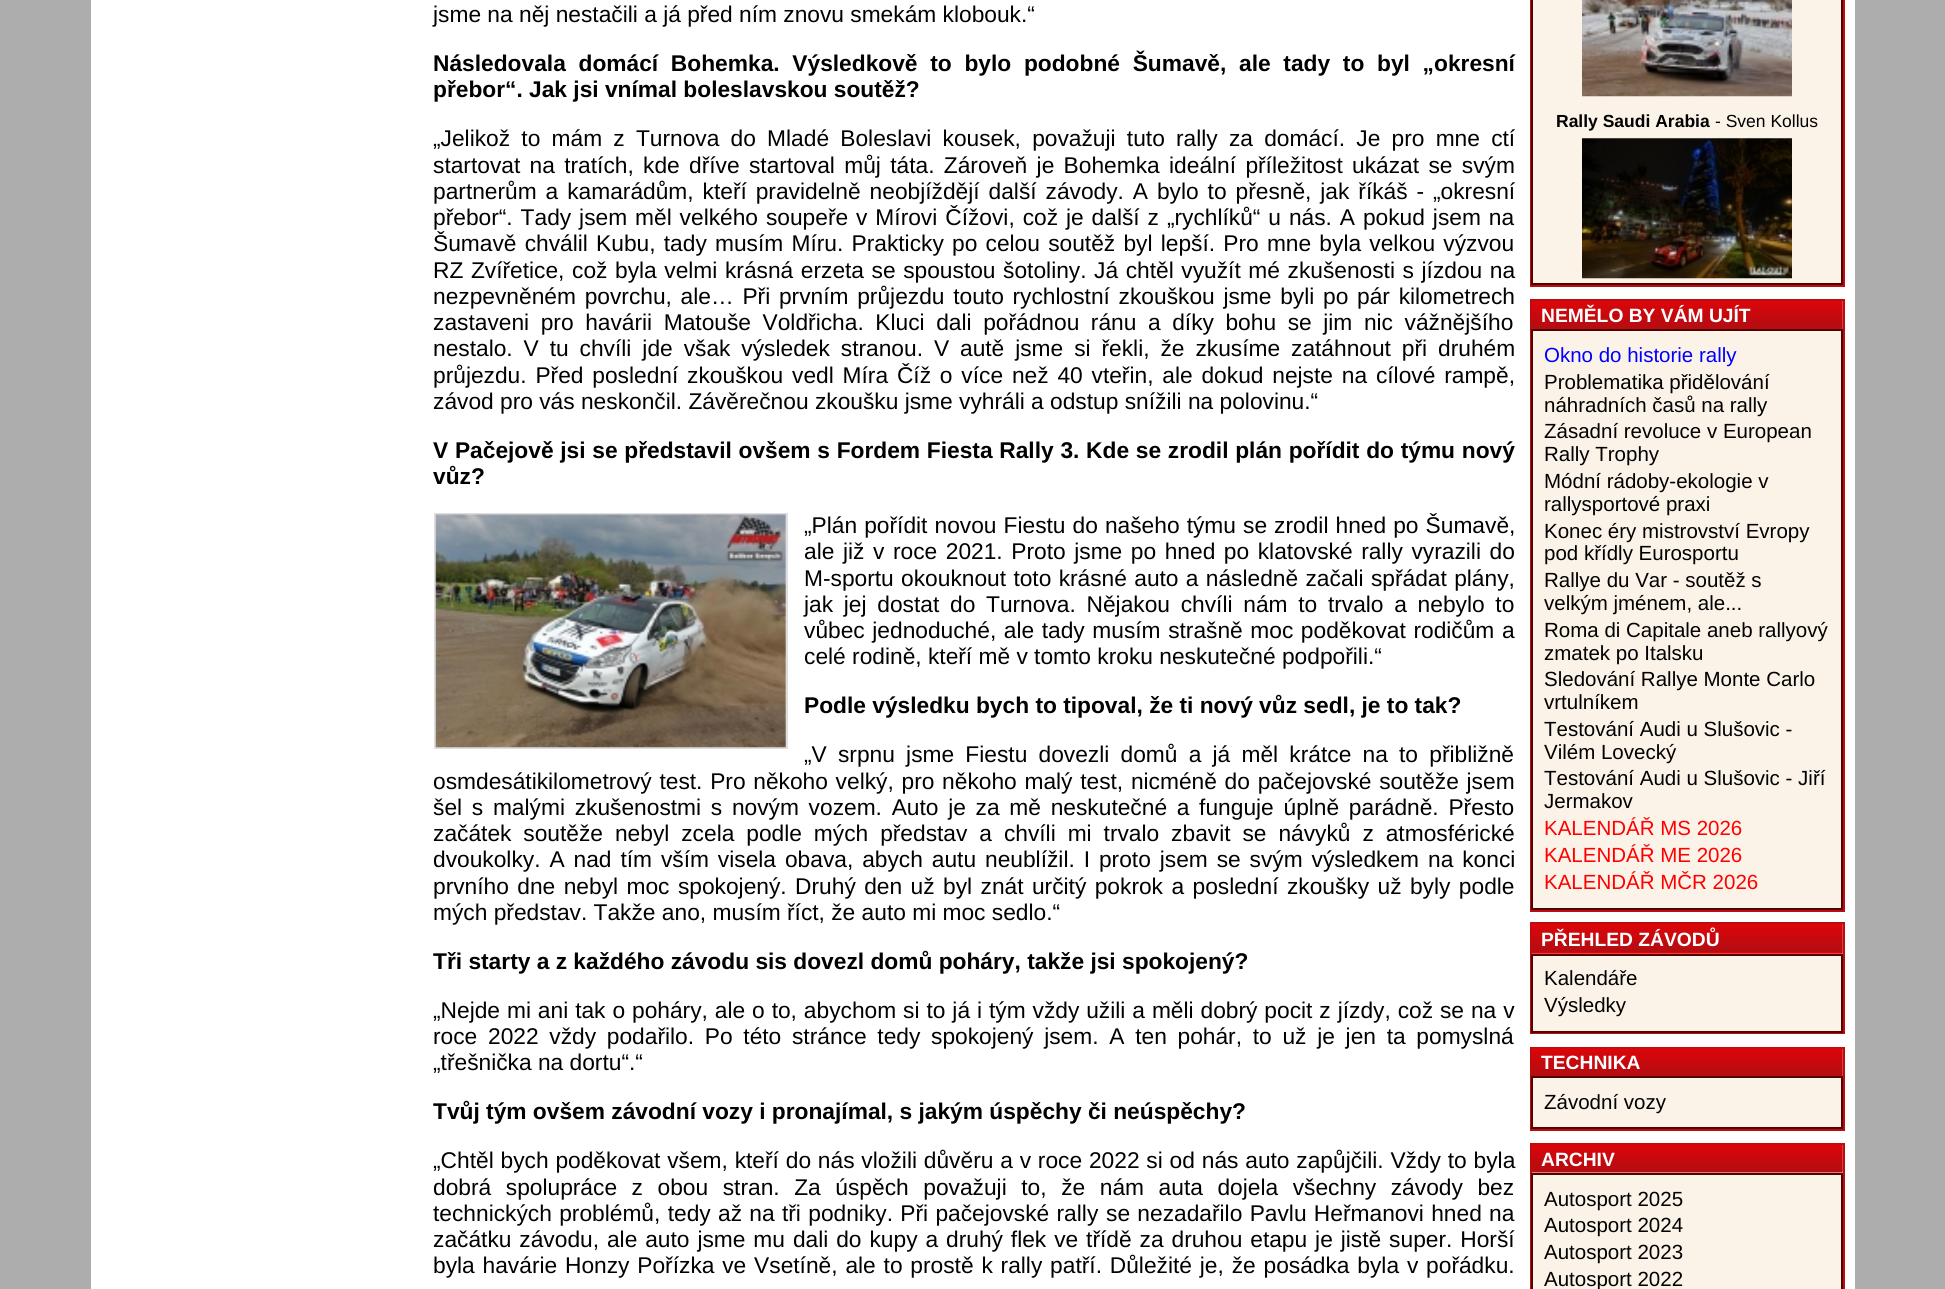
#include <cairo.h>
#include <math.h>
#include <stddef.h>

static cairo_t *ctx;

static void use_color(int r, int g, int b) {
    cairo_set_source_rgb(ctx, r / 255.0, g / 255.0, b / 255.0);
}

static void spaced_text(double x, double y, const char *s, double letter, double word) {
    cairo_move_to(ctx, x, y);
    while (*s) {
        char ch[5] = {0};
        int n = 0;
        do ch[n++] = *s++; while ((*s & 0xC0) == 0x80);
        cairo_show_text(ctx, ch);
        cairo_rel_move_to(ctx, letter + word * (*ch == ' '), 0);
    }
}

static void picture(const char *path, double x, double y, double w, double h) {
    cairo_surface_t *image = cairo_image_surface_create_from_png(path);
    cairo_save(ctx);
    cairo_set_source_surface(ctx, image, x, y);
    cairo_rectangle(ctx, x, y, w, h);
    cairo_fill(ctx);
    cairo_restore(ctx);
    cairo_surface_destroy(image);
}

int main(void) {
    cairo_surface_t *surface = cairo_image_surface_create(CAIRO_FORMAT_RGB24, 1945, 1289);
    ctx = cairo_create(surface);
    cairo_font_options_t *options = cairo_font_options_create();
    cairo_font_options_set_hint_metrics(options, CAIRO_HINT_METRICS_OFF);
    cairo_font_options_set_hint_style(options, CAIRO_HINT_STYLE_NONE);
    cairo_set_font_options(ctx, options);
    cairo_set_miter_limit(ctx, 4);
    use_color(173, 173, 173);
    cairo_paint(ctx);
    use_color(255, 255, 255);
    cairo_rectangle(ctx, 91, 0, 1764, 1289);
    cairo_fill(ctx);
    cairo_select_font_face(ctx, "Liberation Sans", CAIRO_FONT_SLANT_NORMAL, CAIRO_FONT_WEIGHT_NORMAL);
    cairo_set_font_size(ctx, 22.75);
    use_color(0, 0, 0);
    cairo_move_to(ctx, 433, 22);
    cairo_show_text(ctx, "jsme na něj nestačili a já před ním znovu smekám klobouk.“");
    cairo_select_font_face(ctx, "Liberation Sans", CAIRO_FONT_SLANT_NORMAL, CAIRO_FONT_WEIGHT_BOLD);
    spaced_text(433, 71, "Následovala domácí Bohemka. Výsledkově to bylo podobné Šumavě, ale tady to byl „okresní", 0, 6.4);
    cairo_move_to(ctx, 433, 97);
    cairo_show_text(ctx, "přebor“. Jak jsi vnímal boleslavskou soutěž?");
    cairo_select_font_face(ctx, "Liberation Sans", CAIRO_FONT_SLANT_NORMAL, CAIRO_FONT_WEIGHT_NORMAL);
    spaced_text(433, 146, "„Jelikož to mám z Turnova do Mladé Boleslavi kousek, považuji tuto rally za domácí. Je pro mne ctí", 0, 4.9);
    spaced_text(433, 173, "startovat na tratích, kde dříve startoval můj táta. Zároveň je Bohemka ideální příležitost ukázat se svým", 0, 3);
    spaced_text(433, 199, "partnerům a kamarádům, kteří pravidelně neobjíždějí další závody. A bylo to přesně, jak říkáš - „okresní", 0, 2.6);
    spaced_text(433, 225, "přebor“. Tady jsem měl velkého soupeře v Mírovi Čížovi, což je další z „rychlíků“ u nás. A pokud jsem na", 0, 1.6);
    spaced_text(433, 251, "Šumavě chválil Kubu, tady musím Míru. Prakticky po celou soutěž byl lepší. Pro mne byla velkou výzvou", 0, 1.9);
    spaced_text(433, 278, "RZ Zvířetice, což byla velmi krásná erzeta se spoustou šotoliny. Já chtěl využít mé zkušenosti s jízdou na", 0, 1.25);
    spaced_text(433, 304, "nezpevněném povrchu, ale… Při prvním průjezdu touto rychlostní zkouškou jsme byli po pár kilometrech", 0, 2.4);
    spaced_text(433, 330, "zastaveni pro havárii Matouše Voldřicha. Kluci dali pořádnou ránu a díky bohu se jim nic vážnějšího", 0, 5.25);
    spaced_text(433, 356, "nestalo. V tu chvíli jde však výsledek stranou. V autě jsme si řekli, že zkusíme zatáhnout při druhém", 0, 4.6);
    spaced_text(433, 383, "průjezdu. Před poslední zkouškou vedl Míra Číž o více než 40 vteřin, ale dokud nejste na cílové rampě,", 0, 2.5);
    cairo_move_to(ctx, 433, 409);
    cairo_show_text(ctx, "závod pro vás neskončil. Závěrečnou zkoušku jsme vyhráli a odstup snížili na polovinu.“");
    cairo_select_font_face(ctx, "Liberation Sans", CAIRO_FONT_SLANT_NORMAL, CAIRO_FONT_WEIGHT_BOLD);
    spaced_text(433, 458, "V Pačejově jsi se představil ovšem s Fordem Fiesta Rally 3. Kde se zrodil plán pořídit do týmu nový", 0, 0.4);
    cairo_move_to(ctx, 433, 484);
    cairo_show_text(ctx, "vůz?");
    cairo_rectangle(ctx, 435, 514, 352, 234);
    use_color(221, 221, 221);
    cairo_stroke(ctx);
    picture("img1.png", 435, 514, 351, 234);
    cairo_select_font_face(ctx, "Liberation Sans", CAIRO_FONT_SLANT_NORMAL, CAIRO_FONT_WEIGHT_NORMAL);
    use_color(0, 0, 0);
    spaced_text(804, 533, "„Plán pořídit novou Fiestu do našeho týmu se zrodil hned po Šumavě,", 0, 0.75);
    spaced_text(804, 559, "ale již v roce 2021. Proto jsme po hned po klatovské rally vyrazili do", 0, 2.25);
    spaced_text(804, 586, "M-sportu okouknout toto krásné auto a následně začali spřádat plány,", 0, 1);
    spaced_text(804, 612, "jak jej dostat do Turnova. Nějakou chvíli nám to trvalo a nebylo to", 0, 4.4);
    spaced_text(804, 638, "vůbec jednoduché, ale tady musím strašně moc poděkovat rodičům a", 0, 1.25);
    cairo_move_to(ctx, 804, 664);
    cairo_show_text(ctx, "celé rodině, kteří mě v tomto kroku neskutečné podpořili.“");
    cairo_select_font_face(ctx, "Liberation Sans", CAIRO_FONT_SLANT_NORMAL, CAIRO_FONT_WEIGHT_BOLD);
    cairo_move_to(ctx, 804, 713);
    cairo_show_text(ctx, "Podle výsledku bych to tipoval, že ti nový vůz sedl, je to tak?");
    cairo_select_font_face(ctx, "Liberation Sans", CAIRO_FONT_SLANT_NORMAL, CAIRO_FONT_WEIGHT_NORMAL);
    spaced_text(804, 762, "„V srpnu jsme Fiestu dovezli domů a já měl krátce na to přibližně", 0, 4.9);
    spaced_text(433, 789, "osmdesátikilometrový test. Pro někoho velký, pro někoho malý test, nicméně do pačejovské soutěže jsem", 0, 1.4);
    spaced_text(433, 815, "šel s malými zkušenostmi s novým vozem. Auto je za mě neskutečné a funguje úplně parádně. Přesto", 0, 3.4);
    spaced_text(433, 841, "začátek soutěže nebyl zcela podle mých představ a chvíli mi trvalo zbavit se návyků z atmosférické", 0, 5.6);
    spaced_text(433, 867, "dvoukolky. A nad tím vším visela obava, abych autu neublížil. I proto jsem se svým výsledkem na konci", 0, 2.6);
    spaced_text(433, 894, "prvního dne nebyl moc spokojený. Druhý den už byl znát určitý pokrok a poslední zkoušky už byly podle", 0, 2.1);
    cairo_move_to(ctx, 433, 920);
    cairo_show_text(ctx, "mých představ. Takže ano, musím říct, že auto mi moc sedlo.“");
    cairo_select_font_face(ctx, "Liberation Sans", CAIRO_FONT_SLANT_NORMAL, CAIRO_FONT_WEIGHT_BOLD);
    cairo_move_to(ctx, 433, 969);
    cairo_show_text(ctx, "Tři starty a z každého závodu sis dovezl domů poháry, takže jsi spokojený?");
    cairo_select_font_face(ctx, "Liberation Sans", CAIRO_FONT_SLANT_NORMAL, CAIRO_FONT_WEIGHT_NORMAL);
    spaced_text(433, 1018, "„Nejde mi ani tak o poháry, ale o to, abychom si to já i tým vždy užili a měli dobrý pocit z jízdy, což se na v", 0, 0.6);
    spaced_text(433, 1044, "roce 2022 vždy podařilo. Po této stránce tedy spokojený jsem. A ten pohár, to už je jen ta pomyslná", 0, 4.4);
    cairo_move_to(ctx, 433, 1070);
    cairo_show_text(ctx, "„třešnička na dortu“.“");
    cairo_select_font_face(ctx, "Liberation Sans", CAIRO_FONT_SLANT_NORMAL, CAIRO_FONT_WEIGHT_BOLD);
    cairo_move_to(ctx, 433, 1119);
    cairo_show_text(ctx, "Tvůj tým ovšem závodní vozy i pronajímal, s jakým úspěchy či neúspěchy?");
    cairo_select_font_face(ctx, "Liberation Sans", CAIRO_FONT_SLANT_NORMAL, CAIRO_FONT_WEIGHT_NORMAL);
    spaced_text(433, 1168, "„Chtěl bych poděkovat všem, kteří do nás vložili důvěru a v roce 2022 si od nás auto zapůjčili. Vždy to byla", 0, 0.5);
    spaced_text(433, 1195, "dobrá spolupráce z obou stran. Za úspěch považuji to, že nám auta dojela všechny závody bez", 0, 8.25);
    spaced_text(433, 1221, "technických problémů, tedy až na tři podniky. Při pačejovské rally", 0, 1);
    spaced_text(1106, 1221, "se nezadařilo Pavlu Heřmanovi hned na", 0, 1);
    spaced_text(433, 1247, "začátku závodu, ale auto jsme mu dali do kupy a druhý flek ve třídě za druhou etapu je jistě super. Horší", 0, 1.6);
    spaced_text(433, 1273, "byla havárie Honzy Pořízka ve Vsetíně, ale to prostě k rally patří. Důležité je, že posádka byla v pořádku.", 0, 1.5);
    use_color(251, 243, 232);
    cairo_rectangle(ctx, 1533, 0, 308, 283);
    cairo_fill(ctx);
    cairo_rectangle(ctx, 1531, -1, 313, 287);
    use_color(187, 12, 17);
    cairo_stroke(ctx);
    cairo_rectangle(ctx, 1532, -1, 310, 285);
    use_color(83, 0, 0);
    cairo_stroke(ctx);
    picture("img2.png", 1582, 0, 210, 97);
    cairo_select_font_face(ctx, "Liberation Sans", CAIRO_FONT_SLANT_NORMAL, CAIRO_FONT_WEIGHT_BOLD);
    cairo_set_font_size(ctx, 17.5);
    use_color(0, 0, 0);
    cairo_move_to(ctx, 1556, 127);
    cairo_show_text(ctx, "Rally Saudi Arabia");
    cairo_select_font_face(ctx, "Liberation Sans", CAIRO_FONT_SLANT_NORMAL, CAIRO_FONT_WEIGHT_NORMAL);
    cairo_move_to(ctx, 1715, 127);
    cairo_show_text(ctx, "- Sven Kollus");
    picture("img3.png", 1582, 138, 210, 141);
    use_color(251, 243, 232);
    cairo_rectangle(ctx, 1533, 301, 310, 607);
    cairo_fill(ctx);
    cairo_rectangle(ctx, 1531, 300, 313, 611);
    use_color(187, 12, 17);
    cairo_stroke(ctx);
    picture("img4.png", 1531, 301, 312, 28);
    cairo_select_font_face(ctx, "Liberation Sans", CAIRO_FONT_SLANT_NORMAL, CAIRO_FONT_WEIGHT_BOLD);
    cairo_set_font_size(ctx, 19.25);
    use_color(255, 255, 255);
    cairo_move_to(ctx, 1541, 322);
    cairo_show_text(ctx, "NEMĚLO BY VÁM UJÍT");
    cairo_rectangle(ctx, 1532, 330, 310, 579);
    use_color(83, 0, 0);
    cairo_stroke(ctx);
    cairo_select_font_face(ctx, "Liberation Sans", CAIRO_FONT_SLANT_NORMAL, CAIRO_FONT_WEIGHT_NORMAL);
    cairo_set_font_size(ctx, 20.5);
    use_color(0, 0, 255);
    cairo_move_to(ctx, 1544, 362);
    cairo_show_text(ctx, "Okno do historie rally");
    use_color(0, 0, 0);
    cairo_move_to(ctx, 1544, 389);
    cairo_show_text(ctx, "Problematika přidělování");
    cairo_move_to(ctx, 1544, 412);
    cairo_show_text(ctx, "náhradních časů na rally");
    cairo_move_to(ctx, 1544, 438);
    cairo_show_text(ctx, "Zásadní revoluce v European");
    cairo_move_to(ctx, 1544, 461);
    cairo_show_text(ctx, "Rally Trophy");
    cairo_move_to(ctx, 1544, 488);
    cairo_show_text(ctx, "Módní rádoby-ekologie v");
    cairo_move_to(ctx, 1544, 511);
    cairo_show_text(ctx, "rallysportové praxi");
    cairo_move_to(ctx, 1544, 538);
    cairo_show_text(ctx, "Konec éry mistrovství Evropy");
    cairo_move_to(ctx, 1544, 560);
    cairo_show_text(ctx, "pod křídly Eurosportu");
    cairo_move_to(ctx, 1544, 587);
    cairo_show_text(ctx, "Rallye du Var - soutěž s");
    cairo_move_to(ctx, 1544, 610);
    cairo_show_text(ctx, "velkým jménem, ale...");
    cairo_move_to(ctx, 1544, 637);
    cairo_show_text(ctx, "Roma di Capitale aneb rallyový");
    cairo_move_to(ctx, 1544, 660);
    cairo_show_text(ctx, "zmatek po Italsku");
    cairo_move_to(ctx, 1544, 686);
    cairo_show_text(ctx, "Sledování Rallye Monte Carlo");
    cairo_move_to(ctx, 1544, 709);
    cairo_show_text(ctx, "vrtulníkem");
    cairo_move_to(ctx, 1544, 736);
    cairo_show_text(ctx, "Testování Audi u Slušovic -");
    cairo_move_to(ctx, 1544, 759);
    cairo_show_text(ctx, "Vilém Lovecký");
    cairo_move_to(ctx, 1544, 785);
    cairo_show_text(ctx, "Testování Audi u Slušovic - Jiří");
    cairo_move_to(ctx, 1544, 808);
    cairo_show_text(ctx, "Jermakov");
    use_color(255, 0, 0);
    cairo_move_to(ctx, 1544, 835);
    cairo_show_text(ctx, "KALENDÁŘ MS 2026");
    cairo_move_to(ctx, 1544, 862);
    cairo_show_text(ctx, "KALENDÁŘ ME 2026");
    cairo_move_to(ctx, 1544, 889);
    cairo_show_text(ctx, "KALENDÁŘ MČR 2026");
    use_color(251, 243, 232);
    cairo_rectangle(ctx, 1532, 924, 311, 107);
    cairo_fill(ctx);
    cairo_rectangle(ctx, 1531, 923, 313, 110);
    use_color(187, 12, 17);
    cairo_stroke(ctx);
    picture("img5.png", 1531, 924, 312, 30);
    cairo_select_font_face(ctx, "Liberation Sans", CAIRO_FONT_SLANT_NORMAL, CAIRO_FONT_WEIGHT_BOLD);
    cairo_set_font_size(ctx, 19.25);
    use_color(255, 255, 255);
    cairo_move_to(ctx, 1541, 946);
    cairo_show_text(ctx, "PŘEHLED ZÁVODŮ");
    cairo_rectangle(ctx, 1532, 955, 310, 77);
    use_color(83, 0, 0);
    cairo_stroke(ctx);
    cairo_select_font_face(ctx, "Liberation Sans", CAIRO_FONT_SLANT_NORMAL, CAIRO_FONT_WEIGHT_NORMAL);
    cairo_set_font_size(ctx, 20.5);
    use_color(0, 0, 0);
    cairo_move_to(ctx, 1544, 985);
    cairo_show_text(ctx, "Kalendáře");
    cairo_move_to(ctx, 1544, 1012);
    cairo_show_text(ctx, "Výsledky");
    use_color(251, 243, 232);
    cairo_rectangle(ctx, 1533, 1049, 310, 78);
    cairo_fill(ctx);
    cairo_rectangle(ctx, 1531, 1048, 313, 82);
    use_color(187, 12, 17);
    cairo_stroke(ctx);
    picture("img6.png", 1531, 1048, 312, 28);
    cairo_select_font_face(ctx, "Liberation Sans", CAIRO_FONT_SLANT_NORMAL, CAIRO_FONT_WEIGHT_BOLD);
    cairo_set_font_size(ctx, 19.25);
    use_color(255, 255, 255);
    cairo_move_to(ctx, 1541, 1069);
    cairo_show_text(ctx, "TECHNIKA");
    cairo_rectangle(ctx, 1532, 1077, 310, 51);
    use_color(83, 0, 0);
    cairo_stroke(ctx);
    cairo_select_font_face(ctx, "Liberation Sans", CAIRO_FONT_SLANT_NORMAL, CAIRO_FONT_WEIGHT_NORMAL);
    cairo_set_font_size(ctx, 20.5);
    use_color(0, 0, 0);
    cairo_move_to(ctx, 1544, 1109);
    cairo_show_text(ctx, "Závodní vozy");
    use_color(251, 243, 232);
    cairo_rectangle(ctx, 1531, 1144, 313, 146);
    cairo_fill_preserve(ctx);
    use_color(187, 12, 17);
    cairo_stroke(ctx);
    picture("img7.png", 1531, 1144, 312, 29);
    cairo_select_font_face(ctx, "Liberation Sans", CAIRO_FONT_SLANT_NORMAL, CAIRO_FONT_WEIGHT_BOLD);
    cairo_set_font_size(ctx, 19.25);
    use_color(255, 255, 255);
    cairo_move_to(ctx, 1541, 1166);
    cairo_show_text(ctx, "ARCHIV");
    cairo_rectangle(ctx, 1532, 1174, 310, 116);
    use_color(83, 0, 0);
    cairo_stroke(ctx);
    cairo_select_font_face(ctx, "Liberation Sans", CAIRO_FONT_SLANT_NORMAL, CAIRO_FONT_WEIGHT_NORMAL);
    cairo_set_font_size(ctx, 20.5);
    use_color(0, 0, 0);
    cairo_move_to(ctx, 1544, 1206);
    cairo_show_text(ctx, "Autosport 2025");
    cairo_move_to(ctx, 1544, 1232);
    cairo_show_text(ctx, "Autosport 2024");
    cairo_move_to(ctx, 1544, 1259);
    cairo_show_text(ctx, "Autosport 2023");
    cairo_move_to(ctx, 1544, 1286);
    cairo_show_text(ctx, "Autosport 2022");
    cairo_surface_write_to_png(surface, "result.png");
    cairo_font_options_destroy(options);
    cairo_destroy(ctx);
    cairo_surface_destroy(surface);
    return 0;
}
